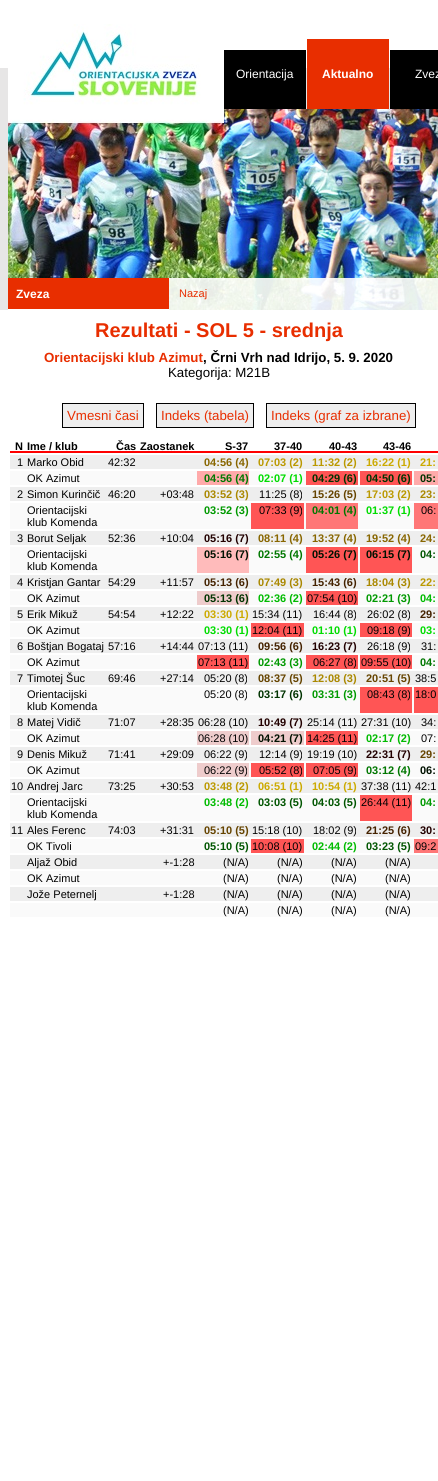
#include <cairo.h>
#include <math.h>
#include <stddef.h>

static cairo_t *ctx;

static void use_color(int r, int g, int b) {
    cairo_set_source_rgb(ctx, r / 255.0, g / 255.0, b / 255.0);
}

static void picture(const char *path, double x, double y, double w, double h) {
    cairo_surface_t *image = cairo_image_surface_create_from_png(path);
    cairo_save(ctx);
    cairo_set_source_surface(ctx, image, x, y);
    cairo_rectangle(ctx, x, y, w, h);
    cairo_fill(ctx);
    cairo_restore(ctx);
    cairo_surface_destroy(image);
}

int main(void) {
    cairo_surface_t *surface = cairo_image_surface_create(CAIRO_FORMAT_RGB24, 438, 1481);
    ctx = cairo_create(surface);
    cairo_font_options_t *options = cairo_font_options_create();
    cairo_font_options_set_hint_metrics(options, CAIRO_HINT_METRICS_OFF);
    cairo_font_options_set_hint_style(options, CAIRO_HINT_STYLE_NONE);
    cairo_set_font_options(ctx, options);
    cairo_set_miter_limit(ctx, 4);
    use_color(255, 255, 255);
    cairo_paint(ctx);
    use_color(231, 230, 230);
    cairo_rectangle(ctx, 0, 68, 390, 242);
    cairo_fill(ctx);
    picture("img1.png", 8, 24, 216, 254);
    use_color(0, 0, 0);
    cairo_rectangle(ctx, 224, 50, 82, 59);
    cairo_fill(ctx);
    cairo_select_font_face(ctx, "Liberation Sans", CAIRO_FONT_SLANT_NORMAL, CAIRO_FONT_WEIGHT_NORMAL);
    cairo_set_font_size(ctx, 12);
    use_color(255, 255, 255);
    cairo_move_to(ctx, 236, 78);
    cairo_show_text(ctx, "Orientacija");
    use_color(232, 46, 0);
    cairo_rectangle(ctx, 307, 39, 82, 70);
    cairo_fill(ctx);
    cairo_select_font_face(ctx, "Liberation Sans", CAIRO_FONT_SLANT_NORMAL, CAIRO_FONT_WEIGHT_BOLD);
    use_color(255, 255, 255);
    cairo_move_to(ctx, 322, 78);
    cairo_show_text(ctx, "Aktualno");
    use_color(0, 0, 0);
    cairo_rectangle(ctx, 390, 50, 48, 59);
    cairo_fill(ctx);
    cairo_select_font_face(ctx, "Liberation Sans", CAIRO_FONT_SLANT_NORMAL, CAIRO_FONT_WEIGHT_NORMAL);
    use_color(255, 255, 255);
    cairo_move_to(ctx, 415, 78);
    cairo_show_text(ctx, "Zvez");
    picture("img2.png", 224, 109, 214, 169);
    use_color(232, 46, 0);
    cairo_rectangle(ctx, 8, 278, 161, 31);
    cairo_fill(ctx);
    use_color(255, 255, 255);
    cairo_rectangle(ctx, 8, 309, 161, 1);
    cairo_fill(ctx);
    cairo_select_font_face(ctx, "Liberation Sans", CAIRO_FONT_SLANT_NORMAL, CAIRO_FONT_WEIGHT_BOLD);
    cairo_move_to(ctx, 16, 298);
    cairo_show_text(ctx, "Zveza");
    picture("img3.png", 169, 278, 269, 32);
    cairo_select_font_face(ctx, "Liberation Sans", CAIRO_FONT_SLANT_NORMAL, CAIRO_FONT_WEIGHT_NORMAL);
    cairo_set_font_size(ctx, 11);
    use_color(232, 46, 0);
    cairo_move_to(ctx, 179, 297);
    cairo_show_text(ctx, "Nazaj");
    cairo_select_font_face(ctx, "Liberation Sans", CAIRO_FONT_SLANT_NORMAL, CAIRO_FONT_WEIGHT_BOLD);
    cairo_set_font_size(ctx, 20);
    cairo_move_to(ctx, 95, 337);
    cairo_show_text(ctx, "Rezultati - SOL 5 - srednja");
    cairo_set_font_size(ctx, 13.3);
    cairo_move_to(ctx, 44, 362);
    cairo_show_text(ctx, "Orientacijski klub Azimut");
    use_color(0, 0, 0);
    cairo_move_to(ctx, 203, 362);
    cairo_show_text(ctx, ", Črni Vrh nad Idrijo, 5. 9. 2020");
    cairo_select_font_face(ctx, "Liberation Sans", CAIRO_FONT_SLANT_NORMAL, CAIRO_FONT_WEIGHT_NORMAL);
    cairo_move_to(ctx, 168, 377);
    cairo_show_text(ctx, "Kategorija: M21B");
    use_color(238, 238, 238);
    cairo_rectangle(ctx, 62.5, 403.5, 81, 24);
    cairo_fill_preserve(ctx);
    use_color(0, 0, 0);
    cairo_set_line_width(ctx, 1);
    cairo_stroke(ctx);
    use_color(232, 46, 0);
    cairo_move_to(ctx, 67, 420);
    cairo_show_text(ctx, "Vmesni časi");
    use_color(238, 238, 238);
    cairo_rectangle(ctx, 156.5, 403.5, 97, 24);
    cairo_fill_preserve(ctx);
    use_color(0, 0, 0);
    cairo_stroke(ctx);
    use_color(232, 46, 0);
    cairo_move_to(ctx, 161, 420);
    cairo_show_text(ctx, "Indeks (tabela)");
    use_color(238, 238, 238);
    cairo_rectangle(ctx, 266.5, 403.5, 149, 24);
    cairo_fill_preserve(ctx);
    use_color(0, 0, 0);
    cairo_stroke(ctx);
    use_color(232, 46, 0);
    cairo_move_to(ctx, 271, 420);
    cairo_show_text(ctx, "Indeks (graf za izbrane)");
    use_color(255, 0, 0);
    cairo_rectangle(ctx, 10, 451, 428, 2);
    cairo_fill(ctx);
    cairo_select_font_face(ctx, "Liberation Sans", CAIRO_FONT_SLANT_NORMAL, CAIRO_FONT_WEIGHT_BOLD);
    cairo_set_font_size(ctx, 11);
    use_color(0, 0, 0);
    cairo_move_to(ctx, 15, 450);
    cairo_show_text(ctx, "N");
    cairo_move_to(ctx, 27, 450);
    cairo_show_text(ctx, "Ime / klub");
    cairo_move_to(ctx, 116, 450);
    cairo_show_text(ctx, "Čas");
    cairo_move_to(ctx, 140, 450);
    cairo_show_text(ctx, "Zaostanek");
    cairo_move_to(ctx, 225, 450);
    cairo_show_text(ctx, "S-37");
    cairo_move_to(ctx, 274, 450);
    cairo_show_text(ctx, "37-40");
    cairo_move_to(ctx, 329, 450);
    cairo_show_text(ctx, "40-43");
    cairo_move_to(ctx, 383, 450);
    cairo_show_text(ctx, "43-46");
    use_color(238, 238, 238);
    cairo_rectangle(ctx, 10, 455, 428, 14);
    cairo_fill(ctx);
    cairo_select_font_face(ctx, "Liberation Sans", CAIRO_FONT_SLANT_NORMAL, CAIRO_FONT_WEIGHT_NORMAL);
    use_color(0, 0, 0);
    cairo_move_to(ctx, 17, 466);
    cairo_show_text(ctx, "1");
    cairo_move_to(ctx, 27, 466);
    cairo_show_text(ctx, "Marko Obid");
    cairo_move_to(ctx, 108, 466);
    cairo_show_text(ctx, "42:32");
    cairo_select_font_face(ctx, "Liberation Sans", CAIRO_FONT_SLANT_NORMAL, CAIRO_FONT_WEIGHT_BOLD);
    use_color(136, 102, 0);
    cairo_move_to(ctx, 204, 466);
    cairo_show_text(ctx, "04:56 (4)");
    use_color(187, 153, 0);
    cairo_move_to(ctx, 258, 466);
    cairo_show_text(ctx, "07:03 (2)");
    cairo_move_to(ctx, 312, 466);
    cairo_show_text(ctx, "11:32 (2)");
    use_color(204, 170, 0);
    cairo_move_to(ctx, 366, 466);
    cairo_show_text(ctx, "16:22 (1)");
    cairo_move_to(ctx, 420, 466);
    cairo_show_text(ctx, "21:");
    use_color(250, 250, 250);
    cairo_rectangle(ctx, 10, 471, 404, 14);
    cairo_fill(ctx);
    cairo_select_font_face(ctx, "Liberation Sans", CAIRO_FONT_SLANT_NORMAL, CAIRO_FONT_WEIGHT_NORMAL);
    use_color(0, 0, 0);
    cairo_move_to(ctx, 27, 482);
    cairo_show_text(ctx, "OK Azimut");
    use_color(255, 170, 170);
    cairo_rectangle(ctx, 197, 471, 52, 14);
    cairo_fill(ctx);
    cairo_select_font_face(ctx, "Liberation Sans", CAIRO_FONT_SLANT_NORMAL, CAIRO_FONT_WEIGHT_BOLD);
    use_color(0, 119, 0);
    cairo_move_to(ctx, 204, 482);
    cairo_show_text(ctx, "04:56 (4)");
    use_color(0, 221, 0);
    cairo_move_to(ctx, 258, 482);
    cairo_show_text(ctx, "02:07 (1)");
    use_color(255, 85, 85);
    cairo_rectangle(ctx, 306, 471, 52, 14);
    cairo_fill(ctx);
    use_color(0, 51, 0);
    cairo_move_to(ctx, 312, 482);
    cairo_show_text(ctx, "04:29 (6)");
    use_color(255, 85, 85);
    cairo_rectangle(ctx, 360, 471, 52, 14);
    cairo_fill(ctx);
    use_color(0, 51, 0);
    cairo_move_to(ctx, 366, 482);
    cairo_show_text(ctx, "04:50 (6)");
    use_color(255, 170, 170);
    cairo_rectangle(ctx, 414, 471, 24, 14);
    cairo_fill(ctx);
    use_color(0, 51, 0);
    cairo_move_to(ctx, 420, 482);
    cairo_show_text(ctx, "05:");
    use_color(238, 238, 238);
    cairo_rectangle(ctx, 10, 487, 428, 14);
    cairo_fill(ctx);
    cairo_select_font_face(ctx, "Liberation Sans", CAIRO_FONT_SLANT_NORMAL, CAIRO_FONT_WEIGHT_NORMAL);
    use_color(0, 0, 0);
    cairo_move_to(ctx, 17, 498);
    cairo_show_text(ctx, "2");
    cairo_move_to(ctx, 27, 498);
    cairo_show_text(ctx, "Simon Kurinčič");
    cairo_move_to(ctx, 108, 498);
    cairo_show_text(ctx, "46:20");
    cairo_move_to(ctx, 160, 498);
    cairo_show_text(ctx, "+03:48");
    cairo_select_font_face(ctx, "Liberation Sans", CAIRO_FONT_SLANT_NORMAL, CAIRO_FONT_WEIGHT_BOLD);
    use_color(170, 136, 0);
    cairo_move_to(ctx, 204, 498);
    cairo_show_text(ctx, "03:52 (3)");
    cairo_select_font_face(ctx, "Liberation Sans", CAIRO_FONT_SLANT_NORMAL, CAIRO_FONT_WEIGHT_NORMAL);
    use_color(0, 0, 0);
    cairo_move_to(ctx, 259, 498);
    cairo_show_text(ctx, "11:25 (8)");
    cairo_select_font_face(ctx, "Liberation Sans", CAIRO_FONT_SLANT_NORMAL, CAIRO_FONT_WEIGHT_BOLD);
    use_color(102, 68, 0);
    cairo_move_to(ctx, 312, 498);
    cairo_show_text(ctx, "15:26 (5)");
    use_color(187, 153, 0);
    cairo_move_to(ctx, 366, 498);
    cairo_show_text(ctx, "17:03 (2)");
    use_color(170, 136, 0);
    cairo_move_to(ctx, 420, 498);
    cairo_show_text(ctx, "23:");
    use_color(250, 250, 250);
    cairo_rectangle(ctx, 10, 503, 404, 26);
    cairo_fill(ctx);
    cairo_select_font_face(ctx, "Liberation Sans", CAIRO_FONT_SLANT_NORMAL, CAIRO_FONT_WEIGHT_NORMAL);
    use_color(0, 0, 0);
    cairo_move_to(ctx, 27, 514);
    cairo_show_text(ctx, "Orientacijski");
    cairo_move_to(ctx, 27, 526);
    cairo_show_text(ctx, "klub Komenda");
    cairo_select_font_face(ctx, "Liberation Sans", CAIRO_FONT_SLANT_NORMAL, CAIRO_FONT_WEIGHT_BOLD);
    use_color(0, 153, 0);
    cairo_move_to(ctx, 204, 514);
    cairo_show_text(ctx, "03:52 (3)");
    use_color(255, 85, 85);
    cairo_rectangle(ctx, 251, 503, 53, 26);
    cairo_fill(ctx);
    cairo_select_font_face(ctx, "Liberation Sans", CAIRO_FONT_SLANT_NORMAL, CAIRO_FONT_WEIGHT_NORMAL);
    use_color(0, 0, 0);
    cairo_move_to(ctx, 259, 514);
    cairo_show_text(ctx, "07:33 (9)");
    use_color(255, 119, 119);
    cairo_rectangle(ctx, 306, 503, 52, 26);
    cairo_fill(ctx);
    cairo_select_font_face(ctx, "Liberation Sans", CAIRO_FONT_SLANT_NORMAL, CAIRO_FONT_WEIGHT_BOLD);
    use_color(0, 119, 0);
    cairo_move_to(ctx, 312, 514);
    cairo_show_text(ctx, "04:01 (4)");
    use_color(0, 221, 0);
    cairo_move_to(ctx, 366, 514);
    cairo_show_text(ctx, "01:37 (1)");
    use_color(255, 119, 119);
    cairo_rectangle(ctx, 414, 503, 24, 26);
    cairo_fill(ctx);
    cairo_select_font_face(ctx, "Liberation Sans", CAIRO_FONT_SLANT_NORMAL, CAIRO_FONT_WEIGHT_NORMAL);
    use_color(0, 0, 0);
    cairo_move_to(ctx, 421, 514);
    cairo_show_text(ctx, "06:");
    use_color(238, 238, 238);
    cairo_rectangle(ctx, 10, 531, 428, 14);
    cairo_fill(ctx);
    use_color(0, 0, 0);
    cairo_move_to(ctx, 17, 542);
    cairo_show_text(ctx, "3");
    cairo_move_to(ctx, 27, 542);
    cairo_show_text(ctx, "Borut Seljak");
    cairo_move_to(ctx, 108, 542);
    cairo_show_text(ctx, "52:36");
    cairo_move_to(ctx, 160, 542);
    cairo_show_text(ctx, "+10:04");
    cairo_select_font_face(ctx, "Liberation Sans", CAIRO_FONT_SLANT_NORMAL, CAIRO_FONT_WEIGHT_BOLD);
    use_color(34, 0, 0);
    cairo_move_to(ctx, 204, 542);
    cairo_show_text(ctx, "05:16 (7)");
    use_color(136, 102, 0);
    cairo_move_to(ctx, 258, 542);
    cairo_show_text(ctx, "08:11 (4)");
    cairo_move_to(ctx, 312, 542);
    cairo_show_text(ctx, "13:37 (4)");
    cairo_move_to(ctx, 366, 542);
    cairo_show_text(ctx, "19:52 (4)");
    cairo_move_to(ctx, 420, 542);
    cairo_show_text(ctx, "24:");
    use_color(250, 250, 250);
    cairo_rectangle(ctx, 10, 547, 428, 26);
    cairo_fill(ctx);
    cairo_select_font_face(ctx, "Liberation Sans", CAIRO_FONT_SLANT_NORMAL, CAIRO_FONT_WEIGHT_NORMAL);
    use_color(0, 0, 0);
    cairo_move_to(ctx, 27, 558);
    cairo_show_text(ctx, "Orientacijski");
    cairo_move_to(ctx, 27, 570);
    cairo_show_text(ctx, "klub Komenda");
    use_color(255, 187, 187);
    cairo_rectangle(ctx, 197, 547, 52, 26);
    cairo_fill(ctx);
    cairo_select_font_face(ctx, "Liberation Sans", CAIRO_FONT_SLANT_NORMAL, CAIRO_FONT_WEIGHT_BOLD);
    use_color(0, 17, 0);
    cairo_move_to(ctx, 204, 558);
    cairo_show_text(ctx, "05:16 (7)");
    use_color(0, 119, 0);
    cairo_move_to(ctx, 258, 558);
    cairo_show_text(ctx, "02:55 (4)");
    use_color(255, 85, 85);
    cairo_rectangle(ctx, 306, 547, 52, 26);
    cairo_fill(ctx);
    use_color(0, 17, 0);
    cairo_move_to(ctx, 312, 558);
    cairo_show_text(ctx, "05:26 (7)");
    use_color(255, 85, 85);
    cairo_rectangle(ctx, 360, 547, 52, 26);
    cairo_fill(ctx);
    use_color(0, 17, 0);
    cairo_move_to(ctx, 366, 558);
    cairo_show_text(ctx, "06:15 (7)");
    use_color(0, 85, 0);
    cairo_move_to(ctx, 420, 558);
    cairo_show_text(ctx, "04:");
    use_color(238, 238, 238);
    cairo_rectangle(ctx, 10, 575, 428, 14);
    cairo_fill(ctx);
    cairo_select_font_face(ctx, "Liberation Sans", CAIRO_FONT_SLANT_NORMAL, CAIRO_FONT_WEIGHT_NORMAL);
    use_color(0, 0, 0);
    cairo_move_to(ctx, 17, 586);
    cairo_show_text(ctx, "4");
    cairo_move_to(ctx, 27, 586);
    cairo_show_text(ctx, "Kristjan Gantar");
    cairo_move_to(ctx, 108, 586);
    cairo_show_text(ctx, "54:29");
    cairo_move_to(ctx, 160, 586);
    cairo_show_text(ctx, "+11:57");
    cairo_select_font_face(ctx, "Liberation Sans", CAIRO_FONT_SLANT_NORMAL, CAIRO_FONT_WEIGHT_BOLD);
    use_color(68, 34, 0);
    cairo_move_to(ctx, 204, 586);
    cairo_show_text(ctx, "05:13 (6)");
    use_color(170, 136, 0);
    cairo_move_to(ctx, 258, 586);
    cairo_show_text(ctx, "07:49 (3)");
    use_color(68, 34, 0);
    cairo_move_to(ctx, 312, 586);
    cairo_show_text(ctx, "15:43 (6)");
    use_color(170, 136, 0);
    cairo_move_to(ctx, 366, 586);
    cairo_show_text(ctx, "18:04 (3)");
    use_color(187, 153, 0);
    cairo_move_to(ctx, 420, 586);
    cairo_show_text(ctx, "22:");
    use_color(250, 250, 250);
    cairo_rectangle(ctx, 10, 591, 428, 14);
    cairo_fill(ctx);
    cairo_select_font_face(ctx, "Liberation Sans", CAIRO_FONT_SLANT_NORMAL, CAIRO_FONT_WEIGHT_NORMAL);
    use_color(0, 0, 0);
    cairo_move_to(ctx, 27, 602);
    cairo_show_text(ctx, "OK Azimut");
    use_color(238, 204, 204);
    cairo_rectangle(ctx, 197, 591, 52, 14);
    cairo_fill(ctx);
    cairo_select_font_face(ctx, "Liberation Sans", CAIRO_FONT_SLANT_NORMAL, CAIRO_FONT_WEIGHT_BOLD);
    use_color(0, 51, 0);
    cairo_move_to(ctx, 204, 602);
    cairo_show_text(ctx, "05:13 (6)");
    use_color(0, 187, 0);
    cairo_move_to(ctx, 258, 602);
    cairo_show_text(ctx, "02:36 (2)");
    use_color(255, 85, 85);
    cairo_rectangle(ctx, 306, 591, 52, 14);
    cairo_fill(ctx);
    cairo_select_font_face(ctx, "Liberation Sans", CAIRO_FONT_SLANT_NORMAL, CAIRO_FONT_WEIGHT_NORMAL);
    use_color(0, 0, 0);
    cairo_move_to(ctx, 307, 602);
    cairo_show_text(ctx, "07:54 (10)");
    cairo_select_font_face(ctx, "Liberation Sans", CAIRO_FONT_SLANT_NORMAL, CAIRO_FONT_WEIGHT_BOLD);
    use_color(0, 153, 0);
    cairo_move_to(ctx, 366, 602);
    cairo_show_text(ctx, "02:21 (3)");
    use_color(0, 187, 0);
    cairo_move_to(ctx, 420, 602);
    cairo_show_text(ctx, "04:");
    use_color(238, 238, 238);
    cairo_rectangle(ctx, 10, 607, 428, 14);
    cairo_fill(ctx);
    cairo_select_font_face(ctx, "Liberation Sans", CAIRO_FONT_SLANT_NORMAL, CAIRO_FONT_WEIGHT_NORMAL);
    use_color(0, 0, 0);
    cairo_move_to(ctx, 17, 618);
    cairo_show_text(ctx, "5");
    cairo_move_to(ctx, 27, 618);
    cairo_show_text(ctx, "Erik Mikuž");
    cairo_move_to(ctx, 108, 618);
    cairo_show_text(ctx, "54:54");
    cairo_move_to(ctx, 160, 618);
    cairo_show_text(ctx, "+12:22");
    cairo_select_font_face(ctx, "Liberation Sans", CAIRO_FONT_SLANT_NORMAL, CAIRO_FONT_WEIGHT_BOLD);
    use_color(204, 170, 0);
    cairo_move_to(ctx, 204, 618);
    cairo_show_text(ctx, "03:30 (1)");
    cairo_select_font_face(ctx, "Liberation Sans", CAIRO_FONT_SLANT_NORMAL, CAIRO_FONT_WEIGHT_NORMAL);
    use_color(0, 0, 0);
    cairo_move_to(ctx, 252, 618);
    cairo_show_text(ctx, "15:34 (11)");
    cairo_move_to(ctx, 313, 618);
    cairo_show_text(ctx, "16:44 (8)");
    cairo_move_to(ctx, 367, 618);
    cairo_show_text(ctx, "26:02 (8)");
    cairo_select_font_face(ctx, "Liberation Sans", CAIRO_FONT_SLANT_NORMAL, CAIRO_FONT_WEIGHT_BOLD);
    use_color(68, 34, 0);
    cairo_move_to(ctx, 420, 618);
    cairo_show_text(ctx, "29:");
    use_color(250, 250, 250);
    cairo_rectangle(ctx, 10, 623, 428, 14);
    cairo_fill(ctx);
    cairo_select_font_face(ctx, "Liberation Sans", CAIRO_FONT_SLANT_NORMAL, CAIRO_FONT_WEIGHT_NORMAL);
    use_color(0, 0, 0);
    cairo_move_to(ctx, 27, 634);
    cairo_show_text(ctx, "OK Azimut");
    cairo_select_font_face(ctx, "Liberation Sans", CAIRO_FONT_SLANT_NORMAL, CAIRO_FONT_WEIGHT_BOLD);
    use_color(0, 221, 0);
    cairo_move_to(ctx, 204, 634);
    cairo_show_text(ctx, "03:30 (1)");
    use_color(255, 85, 85);
    cairo_rectangle(ctx, 251, 623, 53, 14);
    cairo_fill(ctx);
    cairo_select_font_face(ctx, "Liberation Sans", CAIRO_FONT_SLANT_NORMAL, CAIRO_FONT_WEIGHT_NORMAL);
    use_color(0, 0, 0);
    cairo_move_to(ctx, 252, 634);
    cairo_show_text(ctx, "12:04 (11)");
    cairo_select_font_face(ctx, "Liberation Sans", CAIRO_FONT_SLANT_NORMAL, CAIRO_FONT_WEIGHT_BOLD);
    use_color(0, 221, 0);
    cairo_move_to(ctx, 312, 634);
    cairo_show_text(ctx, "01:10 (1)");
    use_color(255, 85, 85);
    cairo_rectangle(ctx, 360, 623, 52, 14);
    cairo_fill(ctx);
    cairo_select_font_face(ctx, "Liberation Sans", CAIRO_FONT_SLANT_NORMAL, CAIRO_FONT_WEIGHT_NORMAL);
    use_color(0, 0, 0);
    cairo_move_to(ctx, 367, 634);
    cairo_show_text(ctx, "09:18 (9)");
    cairo_select_font_face(ctx, "Liberation Sans", CAIRO_FONT_SLANT_NORMAL, CAIRO_FONT_WEIGHT_BOLD);
    use_color(0, 221, 0);
    cairo_move_to(ctx, 420, 634);
    cairo_show_text(ctx, "03:");
    use_color(238, 238, 238);
    cairo_rectangle(ctx, 10, 639, 428, 14);
    cairo_fill(ctx);
    cairo_select_font_face(ctx, "Liberation Sans", CAIRO_FONT_SLANT_NORMAL, CAIRO_FONT_WEIGHT_NORMAL);
    use_color(0, 0, 0);
    cairo_move_to(ctx, 17, 650);
    cairo_show_text(ctx, "6");
    cairo_move_to(ctx, 27, 650);
    cairo_show_text(ctx, "Boštjan Bogataj");
    cairo_move_to(ctx, 108, 650);
    cairo_show_text(ctx, "57:16");
    cairo_move_to(ctx, 160, 650);
    cairo_show_text(ctx, "+14:44");
    cairo_move_to(ctx, 198, 650);
    cairo_show_text(ctx, "07:13 (11)");
    cairo_select_font_face(ctx, "Liberation Sans", CAIRO_FONT_SLANT_NORMAL, CAIRO_FONT_WEIGHT_BOLD);
    use_color(68, 34, 0);
    cairo_move_to(ctx, 258, 650);
    cairo_show_text(ctx, "09:56 (6)");
    use_color(34, 0, 0);
    cairo_move_to(ctx, 312, 650);
    cairo_show_text(ctx, "16:23 (7)");
    cairo_select_font_face(ctx, "Liberation Sans", CAIRO_FONT_SLANT_NORMAL, CAIRO_FONT_WEIGHT_NORMAL);
    use_color(0, 0, 0);
    cairo_move_to(ctx, 367, 650);
    cairo_show_text(ctx, "26:18 (9)");
    cairo_move_to(ctx, 421, 650);
    cairo_show_text(ctx, "31:");
    use_color(250, 250, 250);
    cairo_rectangle(ctx, 10, 655, 428, 14);
    cairo_fill(ctx);
    use_color(0, 0, 0);
    cairo_move_to(ctx, 27, 666);
    cairo_show_text(ctx, "OK Azimut");
    use_color(255, 85, 85);
    cairo_rectangle(ctx, 197, 655, 52, 14);
    cairo_fill(ctx);
    use_color(0, 0, 0);
    cairo_move_to(ctx, 198, 666);
    cairo_show_text(ctx, "07:13 (11)");
    cairo_select_font_face(ctx, "Liberation Sans", CAIRO_FONT_SLANT_NORMAL, CAIRO_FONT_WEIGHT_BOLD);
    use_color(0, 153, 0);
    cairo_move_to(ctx, 258, 666);
    cairo_show_text(ctx, "02:43 (3)");
    use_color(255, 85, 85);
    cairo_rectangle(ctx, 306, 655, 52, 14);
    cairo_fill(ctx);
    cairo_select_font_face(ctx, "Liberation Sans", CAIRO_FONT_SLANT_NORMAL, CAIRO_FONT_WEIGHT_NORMAL);
    use_color(0, 0, 0);
    cairo_move_to(ctx, 313, 666);
    cairo_show_text(ctx, "06:27 (8)");
    use_color(255, 85, 85);
    cairo_rectangle(ctx, 360, 655, 52, 14);
    cairo_fill(ctx);
    use_color(0, 0, 0);
    cairo_move_to(ctx, 361, 666);
    cairo_show_text(ctx, "09:55 (10)");
    cairo_select_font_face(ctx, "Liberation Sans", CAIRO_FONT_SLANT_NORMAL, CAIRO_FONT_WEIGHT_BOLD);
    use_color(0, 119, 0);
    cairo_move_to(ctx, 420, 666);
    cairo_show_text(ctx, "04:");
    use_color(238, 238, 238);
    cairo_rectangle(ctx, 10, 671, 428, 14);
    cairo_fill(ctx);
    cairo_select_font_face(ctx, "Liberation Sans", CAIRO_FONT_SLANT_NORMAL, CAIRO_FONT_WEIGHT_NORMAL);
    use_color(0, 0, 0);
    cairo_move_to(ctx, 17, 682);
    cairo_show_text(ctx, "7");
    cairo_move_to(ctx, 27, 682);
    cairo_show_text(ctx, "Timotej Šuc");
    cairo_move_to(ctx, 108, 682);
    cairo_show_text(ctx, "69:46");
    cairo_move_to(ctx, 160, 682);
    cairo_show_text(ctx, "+27:14");
    cairo_move_to(ctx, 204, 682);
    cairo_show_text(ctx, "05:20 (8)");
    cairo_select_font_face(ctx, "Liberation Sans", CAIRO_FONT_SLANT_NORMAL, CAIRO_FONT_WEIGHT_BOLD);
    use_color(102, 68, 0);
    cairo_move_to(ctx, 258, 682);
    cairo_show_text(ctx, "08:37 (5)");
    use_color(170, 136, 0);
    cairo_move_to(ctx, 312, 682);
    cairo_show_text(ctx, "12:08 (3)");
    use_color(102, 68, 0);
    cairo_move_to(ctx, 366, 682);
    cairo_show_text(ctx, "20:51 (5)");
    cairo_select_font_face(ctx, "Liberation Sans", CAIRO_FONT_SLANT_NORMAL, CAIRO_FONT_WEIGHT_NORMAL);
    use_color(0, 0, 0);
    cairo_move_to(ctx, 415, 682);
    cairo_show_text(ctx, "38:5");
    use_color(250, 250, 250);
    cairo_rectangle(ctx, 10, 687, 404, 26);
    cairo_fill(ctx);
    use_color(0, 0, 0);
    cairo_move_to(ctx, 27, 698);
    cairo_show_text(ctx, "Orientacijski");
    cairo_move_to(ctx, 27, 710);
    cairo_show_text(ctx, "klub Komenda");
    cairo_move_to(ctx, 204, 698);
    cairo_show_text(ctx, "05:20 (8)");
    cairo_select_font_face(ctx, "Liberation Sans", CAIRO_FONT_SLANT_NORMAL, CAIRO_FONT_WEIGHT_BOLD);
    use_color(0, 51, 0);
    cairo_move_to(ctx, 258, 698);
    cairo_show_text(ctx, "03:17 (6)");
    use_color(0, 153, 0);
    cairo_move_to(ctx, 312, 698);
    cairo_show_text(ctx, "03:31 (3)");
    use_color(255, 85, 85);
    cairo_rectangle(ctx, 360, 687, 52, 26);
    cairo_fill(ctx);
    cairo_select_font_face(ctx, "Liberation Sans", CAIRO_FONT_SLANT_NORMAL, CAIRO_FONT_WEIGHT_NORMAL);
    use_color(0, 0, 0);
    cairo_move_to(ctx, 367, 698);
    cairo_show_text(ctx, "08:43 (8)");
    use_color(255, 85, 85);
    cairo_rectangle(ctx, 414, 687, 24, 26);
    cairo_fill(ctx);
    use_color(0, 0, 0);
    cairo_move_to(ctx, 415, 698);
    cairo_show_text(ctx, "18:0");
    use_color(238, 238, 238);
    cairo_rectangle(ctx, 10, 715, 428, 14);
    cairo_fill(ctx);
    use_color(0, 0, 0);
    cairo_move_to(ctx, 17, 726);
    cairo_show_text(ctx, "8");
    cairo_move_to(ctx, 27, 726);
    cairo_show_text(ctx, "Matej Vidič");
    cairo_move_to(ctx, 108, 726);
    cairo_show_text(ctx, "71:07");
    cairo_move_to(ctx, 160, 726);
    cairo_show_text(ctx, "+28:35");
    cairo_move_to(ctx, 198, 726);
    cairo_show_text(ctx, "06:28 (10)");
    cairo_select_font_face(ctx, "Liberation Sans", CAIRO_FONT_SLANT_NORMAL, CAIRO_FONT_WEIGHT_BOLD);
    use_color(34, 0, 0);
    cairo_move_to(ctx, 258, 726);
    cairo_show_text(ctx, "10:49 (7)");
    cairo_select_font_face(ctx, "Liberation Sans", CAIRO_FONT_SLANT_NORMAL, CAIRO_FONT_WEIGHT_NORMAL);
    use_color(0, 0, 0);
    cairo_move_to(ctx, 307, 726);
    cairo_show_text(ctx, "25:14 (11)");
    cairo_move_to(ctx, 361, 726);
    cairo_show_text(ctx, "27:31 (10)");
    cairo_move_to(ctx, 421, 726);
    cairo_show_text(ctx, "34:");
    use_color(250, 250, 250);
    cairo_rectangle(ctx, 10, 731, 428, 14);
    cairo_fill(ctx);
    use_color(0, 0, 0);
    cairo_move_to(ctx, 27, 742);
    cairo_show_text(ctx, "OK Azimut");
    use_color(238, 204, 204);
    cairo_rectangle(ctx, 197, 731, 52, 14);
    cairo_fill(ctx);
    use_color(0, 0, 0);
    cairo_move_to(ctx, 198, 742);
    cairo_show_text(ctx, "06:28 (10)");
    use_color(238, 204, 204);
    cairo_rectangle(ctx, 251, 731, 53, 14);
    cairo_fill(ctx);
    cairo_select_font_face(ctx, "Liberation Sans", CAIRO_FONT_SLANT_NORMAL, CAIRO_FONT_WEIGHT_BOLD);
    use_color(0, 17, 0);
    cairo_move_to(ctx, 258, 742);
    cairo_show_text(ctx, "04:21 (7)");
    use_color(255, 85, 85);
    cairo_rectangle(ctx, 306, 731, 52, 14);
    cairo_fill(ctx);
    cairo_select_font_face(ctx, "Liberation Sans", CAIRO_FONT_SLANT_NORMAL, CAIRO_FONT_WEIGHT_NORMAL);
    use_color(0, 0, 0);
    cairo_move_to(ctx, 307, 742);
    cairo_show_text(ctx, "14:25 (11)");
    cairo_select_font_face(ctx, "Liberation Sans", CAIRO_FONT_SLANT_NORMAL, CAIRO_FONT_WEIGHT_BOLD);
    use_color(0, 187, 0);
    cairo_move_to(ctx, 366, 742);
    cairo_show_text(ctx, "02:17 (2)");
    cairo_select_font_face(ctx, "Liberation Sans", CAIRO_FONT_SLANT_NORMAL, CAIRO_FONT_WEIGHT_NORMAL);
    use_color(0, 0, 0);
    cairo_move_to(ctx, 421, 742);
    cairo_show_text(ctx, "07:");
    use_color(238, 238, 238);
    cairo_rectangle(ctx, 10, 747, 428, 14);
    cairo_fill(ctx);
    use_color(0, 0, 0);
    cairo_move_to(ctx, 17, 758);
    cairo_show_text(ctx, "9");
    cairo_move_to(ctx, 27, 758);
    cairo_show_text(ctx, "Denis Mikuž");
    cairo_move_to(ctx, 108, 758);
    cairo_show_text(ctx, "71:41");
    cairo_move_to(ctx, 160, 758);
    cairo_show_text(ctx, "+29:09");
    cairo_move_to(ctx, 204, 758);
    cairo_show_text(ctx, "06:22 (9)");
    cairo_move_to(ctx, 259, 758);
    cairo_show_text(ctx, "12:14 (9)");
    cairo_move_to(ctx, 307, 758);
    cairo_show_text(ctx, "19:19 (10)");
    cairo_select_font_face(ctx, "Liberation Sans", CAIRO_FONT_SLANT_NORMAL, CAIRO_FONT_WEIGHT_BOLD);
    use_color(34, 0, 0);
    cairo_move_to(ctx, 366, 758);
    cairo_show_text(ctx, "22:31 (7)");
    use_color(102, 68, 0);
    cairo_move_to(ctx, 420, 758);
    cairo_show_text(ctx, "29:");
    use_color(250, 250, 250);
    cairo_rectangle(ctx, 10, 763, 428, 14);
    cairo_fill(ctx);
    cairo_select_font_face(ctx, "Liberation Sans", CAIRO_FONT_SLANT_NORMAL, CAIRO_FONT_WEIGHT_NORMAL);
    use_color(0, 0, 0);
    cairo_move_to(ctx, 27, 774);
    cairo_show_text(ctx, "OK Azimut");
    use_color(238, 204, 204);
    cairo_rectangle(ctx, 197, 763, 52, 14);
    cairo_fill(ctx);
    use_color(0, 0, 0);
    cairo_move_to(ctx, 204, 774);
    cairo_show_text(ctx, "06:22 (9)");
    use_color(255, 85, 85);
    cairo_rectangle(ctx, 251, 763, 53, 14);
    cairo_fill(ctx);
    use_color(0, 0, 0);
    cairo_move_to(ctx, 259, 774);
    cairo_show_text(ctx, "05:52 (8)");
    use_color(255, 85, 85);
    cairo_rectangle(ctx, 306, 763, 52, 14);
    cairo_fill(ctx);
    use_color(0, 0, 0);
    cairo_move_to(ctx, 313, 774);
    cairo_show_text(ctx, "07:05 (9)");
    cairo_select_font_face(ctx, "Liberation Sans", CAIRO_FONT_SLANT_NORMAL, CAIRO_FONT_WEIGHT_BOLD);
    use_color(0, 119, 0);
    cairo_move_to(ctx, 366, 774);
    cairo_show_text(ctx, "03:12 (4)");
    use_color(0, 17, 0);
    cairo_move_to(ctx, 420, 774);
    cairo_show_text(ctx, "06:");
    use_color(238, 238, 238);
    cairo_rectangle(ctx, 10, 779, 428, 14);
    cairo_fill(ctx);
    cairo_select_font_face(ctx, "Liberation Sans", CAIRO_FONT_SLANT_NORMAL, CAIRO_FONT_WEIGHT_NORMAL);
    use_color(0, 0, 0);
    cairo_move_to(ctx, 11, 790);
    cairo_show_text(ctx, "10");
    cairo_move_to(ctx, 27, 790);
    cairo_show_text(ctx, "Andrej Jarc");
    cairo_move_to(ctx, 108, 790);
    cairo_show_text(ctx, "73:25");
    cairo_move_to(ctx, 160, 790);
    cairo_show_text(ctx, "+30:53");
    cairo_select_font_face(ctx, "Liberation Sans", CAIRO_FONT_SLANT_NORMAL, CAIRO_FONT_WEIGHT_BOLD);
    use_color(187, 153, 0);
    cairo_move_to(ctx, 204, 790);
    cairo_show_text(ctx, "03:48 (2)");
    use_color(204, 170, 0);
    cairo_move_to(ctx, 258, 790);
    cairo_show_text(ctx, "06:51 (1)");
    cairo_move_to(ctx, 312, 790);
    cairo_show_text(ctx, "10:54 (1)");
    cairo_select_font_face(ctx, "Liberation Sans", CAIRO_FONT_SLANT_NORMAL, CAIRO_FONT_WEIGHT_NORMAL);
    use_color(0, 0, 0);
    cairo_move_to(ctx, 361, 790);
    cairo_show_text(ctx, "37:38 (11)");
    cairo_move_to(ctx, 415, 790);
    cairo_show_text(ctx, "42:1");
    use_color(250, 250, 250);
    cairo_rectangle(ctx, 10, 795, 428, 26);
    cairo_fill(ctx);
    use_color(0, 0, 0);
    cairo_move_to(ctx, 27, 806);
    cairo_show_text(ctx, "Orientacijski");
    cairo_move_to(ctx, 27, 818);
    cairo_show_text(ctx, "klub Komenda");
    cairo_select_font_face(ctx, "Liberation Sans", CAIRO_FONT_SLANT_NORMAL, CAIRO_FONT_WEIGHT_BOLD);
    use_color(0, 187, 0);
    cairo_move_to(ctx, 204, 806);
    cairo_show_text(ctx, "03:48 (2)");
    use_color(0, 85, 0);
    cairo_move_to(ctx, 258, 806);
    cairo_show_text(ctx, "03:03 (5)");
    cairo_move_to(ctx, 312, 806);
    cairo_show_text(ctx, "04:03 (5)");
    use_color(255, 85, 85);
    cairo_rectangle(ctx, 360, 795, 52, 26);
    cairo_fill(ctx);
    cairo_select_font_face(ctx, "Liberation Sans", CAIRO_FONT_SLANT_NORMAL, CAIRO_FONT_WEIGHT_NORMAL);
    use_color(0, 0, 0);
    cairo_move_to(ctx, 361, 806);
    cairo_show_text(ctx, "26:44 (11)");
    cairo_select_font_face(ctx, "Liberation Sans", CAIRO_FONT_SLANT_NORMAL, CAIRO_FONT_WEIGHT_BOLD);
    use_color(0, 153, 0);
    cairo_move_to(ctx, 420, 806);
    cairo_show_text(ctx, "04:");
    use_color(238, 238, 238);
    cairo_rectangle(ctx, 10, 823, 428, 14);
    cairo_fill(ctx);
    cairo_select_font_face(ctx, "Liberation Sans", CAIRO_FONT_SLANT_NORMAL, CAIRO_FONT_WEIGHT_NORMAL);
    use_color(0, 0, 0);
    cairo_move_to(ctx, 11, 834);
    cairo_show_text(ctx, "11");
    cairo_move_to(ctx, 27, 834);
    cairo_show_text(ctx, "Ales Ferenc");
    cairo_move_to(ctx, 108, 834);
    cairo_show_text(ctx, "74:03");
    cairo_move_to(ctx, 160, 834);
    cairo_show_text(ctx, "+31:31");
    cairo_select_font_face(ctx, "Liberation Sans", CAIRO_FONT_SLANT_NORMAL, CAIRO_FONT_WEIGHT_BOLD);
    use_color(102, 68, 0);
    cairo_move_to(ctx, 204, 834);
    cairo_show_text(ctx, "05:10 (5)");
    cairo_select_font_face(ctx, "Liberation Sans", CAIRO_FONT_SLANT_NORMAL, CAIRO_FONT_WEIGHT_NORMAL);
    use_color(0, 0, 0);
    cairo_move_to(ctx, 252, 834);
    cairo_show_text(ctx, "15:18 (10)");
    cairo_move_to(ctx, 313, 834);
    cairo_show_text(ctx, "18:02 (9)");
    cairo_select_font_face(ctx, "Liberation Sans", CAIRO_FONT_SLANT_NORMAL, CAIRO_FONT_WEIGHT_BOLD);
    use_color(68, 34, 0);
    cairo_move_to(ctx, 366, 834);
    cairo_show_text(ctx, "21:25 (6)");
    use_color(34, 0, 0);
    cairo_move_to(ctx, 420, 834);
    cairo_show_text(ctx, "30:");
    use_color(250, 250, 250);
    cairo_rectangle(ctx, 10, 839, 404, 14);
    cairo_fill(ctx);
    cairo_select_font_face(ctx, "Liberation Sans", CAIRO_FONT_SLANT_NORMAL, CAIRO_FONT_WEIGHT_NORMAL);
    use_color(0, 0, 0);
    cairo_move_to(ctx, 27, 850);
    cairo_show_text(ctx, "OK Tivoli");
    cairo_select_font_face(ctx, "Liberation Sans", CAIRO_FONT_SLANT_NORMAL, CAIRO_FONT_WEIGHT_BOLD);
    use_color(0, 85, 0);
    cairo_move_to(ctx, 204, 850);
    cairo_show_text(ctx, "05:10 (5)");
    use_color(255, 85, 85);
    cairo_rectangle(ctx, 251, 839, 53, 14);
    cairo_fill(ctx);
    cairo_select_font_face(ctx, "Liberation Sans", CAIRO_FONT_SLANT_NORMAL, CAIRO_FONT_WEIGHT_NORMAL);
    use_color(0, 0, 0);
    cairo_move_to(ctx, 252, 850);
    cairo_show_text(ctx, "10:08 (10)");
    cairo_select_font_face(ctx, "Liberation Sans", CAIRO_FONT_SLANT_NORMAL, CAIRO_FONT_WEIGHT_BOLD);
    use_color(0, 187, 0);
    cairo_move_to(ctx, 312, 850);
    cairo_show_text(ctx, "02:44 (2)");
    use_color(0, 85, 0);
    cairo_move_to(ctx, 366, 850);
    cairo_show_text(ctx, "03:23 (5)");
    use_color(255, 119, 119);
    cairo_rectangle(ctx, 414, 839, 24, 14);
    cairo_fill(ctx);
    cairo_select_font_face(ctx, "Liberation Sans", CAIRO_FONT_SLANT_NORMAL, CAIRO_FONT_WEIGHT_NORMAL);
    use_color(0, 0, 0);
    cairo_move_to(ctx, 415, 850);
    cairo_show_text(ctx, "09:2");
    use_color(238, 238, 238);
    cairo_rectangle(ctx, 10, 855, 428, 14);
    cairo_fill(ctx);
    use_color(0, 0, 0);
    cairo_move_to(ctx, 27, 866);
    cairo_show_text(ctx, "Aljaž Obid");
    cairo_move_to(ctx, 163, 866);
    cairo_show_text(ctx, "+-1:28");
    cairo_move_to(ctx, 223, 866);
    cairo_show_text(ctx, "(N/A)");
    cairo_move_to(ctx, 277, 866);
    cairo_show_text(ctx, "(N/A)");
    cairo_move_to(ctx, 331, 866);
    cairo_show_text(ctx, "(N/A)");
    cairo_move_to(ctx, 385, 866);
    cairo_show_text(ctx, "(N/A)");
    use_color(250, 250, 250);
    cairo_rectangle(ctx, 10, 871, 428, 14);
    cairo_fill(ctx);
    use_color(0, 0, 0);
    cairo_move_to(ctx, 27, 882);
    cairo_show_text(ctx, "OK Azimut");
    cairo_move_to(ctx, 223, 882);
    cairo_show_text(ctx, "(N/A)");
    cairo_move_to(ctx, 277, 882);
    cairo_show_text(ctx, "(N/A)");
    cairo_move_to(ctx, 331, 882);
    cairo_show_text(ctx, "(N/A)");
    cairo_move_to(ctx, 385, 882);
    cairo_show_text(ctx, "(N/A)");
    use_color(238, 238, 238);
    cairo_rectangle(ctx, 10, 887, 428, 14);
    cairo_fill(ctx);
    use_color(0, 0, 0);
    cairo_move_to(ctx, 27, 898);
    cairo_show_text(ctx, "Jože Peternelj");
    cairo_move_to(ctx, 163, 898);
    cairo_show_text(ctx, "+-1:28");
    cairo_move_to(ctx, 223, 898);
    cairo_show_text(ctx, "(N/A)");
    cairo_move_to(ctx, 277, 898);
    cairo_show_text(ctx, "(N/A)");
    cairo_move_to(ctx, 331, 898);
    cairo_show_text(ctx, "(N/A)");
    cairo_move_to(ctx, 385, 898);
    cairo_show_text(ctx, "(N/A)");
    use_color(250, 250, 250);
    cairo_rectangle(ctx, 10, 903, 428, 14);
    cairo_fill(ctx);
    use_color(0, 0, 0);
    cairo_move_to(ctx, 223, 914);
    cairo_show_text(ctx, "(N/A)");
    cairo_move_to(ctx, 277, 914);
    cairo_show_text(ctx, "(N/A)");
    cairo_move_to(ctx, 331, 914);
    cairo_show_text(ctx, "(N/A)");
    cairo_move_to(ctx, 385, 914);
    cairo_show_text(ctx, "(N/A)");
    cairo_surface_write_to_png(surface, "result.png");
    cairo_font_options_destroy(options);
    cairo_destroy(ctx);
    cairo_surface_destroy(surface);
    return 0;
}
